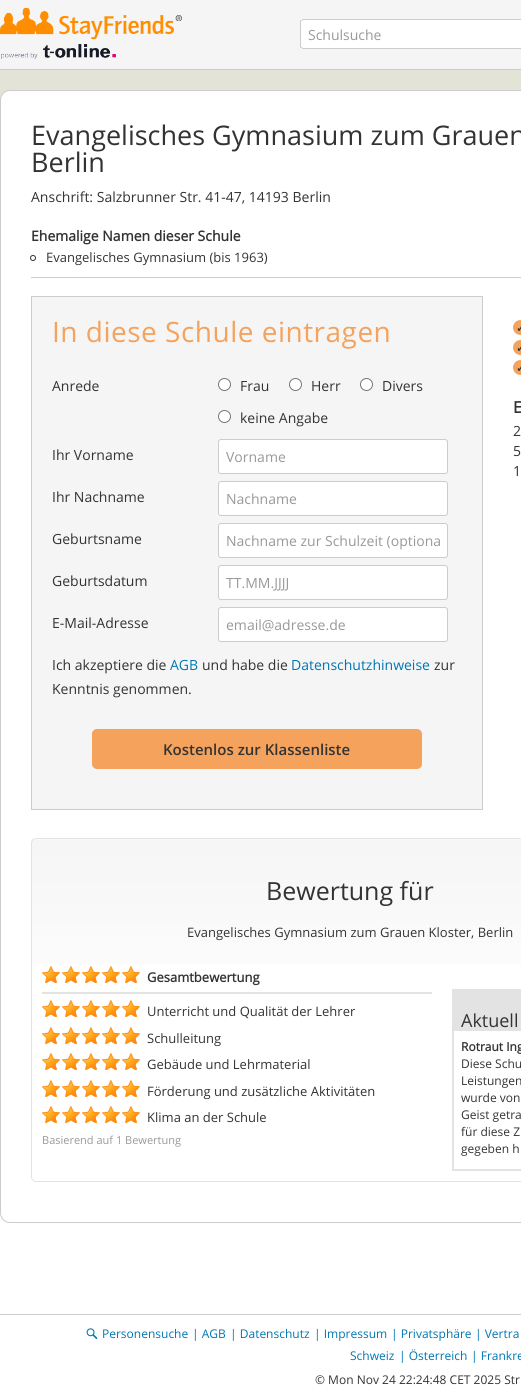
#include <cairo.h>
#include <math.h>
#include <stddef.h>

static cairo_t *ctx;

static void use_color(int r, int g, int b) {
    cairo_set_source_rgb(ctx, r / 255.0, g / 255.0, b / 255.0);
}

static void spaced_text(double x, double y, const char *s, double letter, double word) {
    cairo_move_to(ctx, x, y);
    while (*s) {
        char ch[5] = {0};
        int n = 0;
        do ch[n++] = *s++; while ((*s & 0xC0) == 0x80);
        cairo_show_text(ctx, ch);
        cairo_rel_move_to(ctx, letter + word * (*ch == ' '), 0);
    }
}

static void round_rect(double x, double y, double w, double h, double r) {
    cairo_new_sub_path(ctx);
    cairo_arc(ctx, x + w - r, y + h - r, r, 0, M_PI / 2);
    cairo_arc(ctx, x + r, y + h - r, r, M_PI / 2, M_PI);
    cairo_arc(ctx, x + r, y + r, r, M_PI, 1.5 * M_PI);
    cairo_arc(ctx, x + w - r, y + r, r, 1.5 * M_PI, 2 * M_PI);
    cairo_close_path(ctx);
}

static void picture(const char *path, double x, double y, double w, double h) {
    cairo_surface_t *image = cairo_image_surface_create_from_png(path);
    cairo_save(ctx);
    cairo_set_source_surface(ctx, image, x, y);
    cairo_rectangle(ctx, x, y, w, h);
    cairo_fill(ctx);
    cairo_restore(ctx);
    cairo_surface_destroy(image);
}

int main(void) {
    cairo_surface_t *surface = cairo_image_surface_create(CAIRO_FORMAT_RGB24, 521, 1399);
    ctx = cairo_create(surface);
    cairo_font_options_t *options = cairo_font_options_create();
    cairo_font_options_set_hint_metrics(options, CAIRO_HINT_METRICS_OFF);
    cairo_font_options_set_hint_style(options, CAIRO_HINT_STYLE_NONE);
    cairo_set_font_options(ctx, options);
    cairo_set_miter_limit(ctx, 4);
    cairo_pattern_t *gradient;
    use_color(255, 255, 255);
    cairo_paint(ctx);
    gradient = cairo_pattern_create_linear(470, 0, 470, 1399);
    cairo_pattern_add_color_stop_rgba(gradient, 0.06, 0.894, 0.89, 0.847, 1);
    cairo_pattern_add_color_stop_rgba(gradient, 0.5, 0.996, 0.996, 0.996, 1);
    cairo_set_source(ctx, gradient);
    cairo_pattern_destroy(gradient);
    cairo_rectangle(ctx, 0, 70, 521, 605);
    cairo_fill(ctx);
    use_color(245, 245, 245);
    cairo_rectangle(ctx, 0, 0, 521, 69);
    cairo_fill(ctx);
    use_color(204, 204, 204);
    cairo_rectangle(ctx, 0, 69, 521, 1);
    cairo_fill(ctx);
    picture("img1.png", 0, 8, 182, 32);
    use_color(255, 255, 255);
    cairo_new_path(ctx);
    cairo_move_to(ctx, 303, 19);
    cairo_line_to(ctx, 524, 19);
    cairo_line_to(ctx, 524, 49);
    cairo_line_to(ctx, 303, 49);
    cairo_curve_to(ctx, 301.5, 49, 300, 47.5, 300, 46);
    cairo_line_to(ctx, 300, 22);
    cairo_curve_to(ctx, 300, 20.5, 301.5, 19, 303, 19);
    cairo_close_path(ctx);
    cairo_fill(ctx);
    use_color(204, 204, 204);
    cairo_new_path(ctx);
    cairo_move_to(ctx, 303, 19);
    cairo_line_to(ctx, 301, 20);
    cairo_line_to(ctx, 302, 21);
    cairo_line_to(ctx, 303, 20);
    cairo_line_to(ctx, 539, 20);
    cairo_line_to(ctx, 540, 19);
    cairo_close_path(ctx);
    cairo_fill(ctx);
    cairo_new_path(ctx);
    cairo_move_to(ctx, 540, 49);
    cairo_line_to(ctx, 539, 48);
    cairo_line_to(ctx, 303, 48);
    cairo_line_to(ctx, 302, 47);
    cairo_line_to(ctx, 301, 48);
    cairo_line_to(ctx, 303, 49);
    cairo_close_path(ctx);
    cairo_fill(ctx);
    cairo_new_path(ctx);
    cairo_move_to(ctx, 300, 22);
    cairo_line_to(ctx, 300, 46);
    cairo_curve_to(ctx, 300, 47, 300, 48, 301, 48);
    cairo_line_to(ctx, 301.5, 47.5);
    cairo_curve_to(ctx, 301, 47, 301, 46.5, 301, 46);
    cairo_line_to(ctx, 301, 22);
    cairo_curve_to(ctx, 301, 21.5, 301, 21, 301.5, 20.5);
    cairo_line_to(ctx, 301, 20);
    cairo_curve_to(ctx, 300, 20, 300, 21, 300, 22);
    cairo_close_path(ctx);
    cairo_fill(ctx);
    cairo_select_font_face(ctx, "Open Sans", CAIRO_FONT_SLANT_NORMAL, CAIRO_FONT_WEIGHT_NORMAL);
    cairo_set_font_size(ctx, 14);
    use_color(153, 153, 153);
    cairo_move_to(ctx, 308, 40);
    cairo_show_text(ctx, "Schulsuche");
    picture("img2.png", 1, 44, 115, 15);
    use_color(255, 255, 255);
    round_rect(0.5, 90.5, 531, 1132, 9.5);
    cairo_fill_preserve(ctx);
    use_color(204, 204, 204);
    cairo_set_line_width(ctx, 1);
    cairo_stroke(ctx);
    cairo_rectangle(ctx, 31, 277, 490, 1);
    cairo_fill(ctx);
    cairo_set_font_size(ctx, 27);
    use_color(51, 51, 51);
    cairo_move_to(ctx, 31, 145);
    cairo_show_text(ctx, "Evangelisches Gymnasium zum Grauen");
    cairo_move_to(ctx, 31, 172);
    cairo_show_text(ctx, "Berlin");
    cairo_set_font_size(ctx, 14);
    cairo_move_to(ctx, 31, 202);
    cairo_show_text(ctx, "Anschrift: Salzbrunner Str. 41-47, 14193 Berlin");
    cairo_select_font_face(ctx, "Open Sans", CAIRO_FONT_SLANT_NORMAL, CAIRO_FONT_WEIGHT_BOLD);
    cairo_move_to(ctx, 31, 241);
    cairo_show_text(ctx, "Ehemalige Namen dieser Schule");
    cairo_new_path(ctx);
    cairo_arc(ctx, 33, 258, 2.5, 0, 2 * M_PI);
    cairo_stroke(ctx);
    cairo_select_font_face(ctx, "Open Sans", CAIRO_FONT_SLANT_NORMAL, CAIRO_FONT_WEIGHT_NORMAL);
    cairo_set_font_size(ctx, 13);
    cairo_move_to(ctx, 46, 262);
    cairo_show_text(ctx, "Evangelisches Gymnasium (bis 1963)");
    use_color(245, 245, 245);
    cairo_rectangle(ctx, 31.5, 296.5, 451, 513);
    cairo_fill_preserve(ctx);
    use_color(204, 204, 204);
    cairo_stroke(ctx);
    cairo_set_font_size(ctx, 28);
    use_color(245, 162, 93);
    spaced_text(52, 342, "In diese Schule eintragen", 0.5, 0);
    cairo_set_font_size(ctx, 14);
    use_color(51, 51, 51);
    cairo_move_to(ctx, 52, 391);
    cairo_show_text(ctx, "Anrede");
    use_color(255, 255, 255);
    cairo_new_path(ctx);
    cairo_arc(ctx, 224.5, 384.5, 6, 0, 2 * M_PI);
    cairo_fill_preserve(ctx);
    use_color(118, 118, 118);
    cairo_stroke(ctx);
    use_color(51, 51, 51);
    cairo_move_to(ctx, 240, 391);
    cairo_show_text(ctx, "Frau");
    use_color(255, 255, 255);
    cairo_new_path(ctx);
    cairo_arc(ctx, 295.5, 384.5, 6, 0, 2 * M_PI);
    cairo_fill_preserve(ctx);
    use_color(118, 118, 118);
    cairo_stroke(ctx);
    use_color(51, 51, 51);
    cairo_move_to(ctx, 311, 391);
    cairo_show_text(ctx, "Herr");
    use_color(255, 255, 255);
    cairo_new_path(ctx);
    cairo_arc(ctx, 366.5, 384.5, 6, 0, 2 * M_PI);
    cairo_fill_preserve(ctx);
    use_color(118, 118, 118);
    cairo_stroke(ctx);
    use_color(51, 51, 51);
    cairo_move_to(ctx, 382, 391);
    cairo_show_text(ctx, "Divers");
    use_color(255, 255, 255);
    cairo_new_path(ctx);
    cairo_arc(ctx, 224.5, 416.5, 6, 0, 2 * M_PI);
    cairo_fill_preserve(ctx);
    use_color(118, 118, 118);
    cairo_stroke(ctx);
    use_color(51, 51, 51);
    cairo_move_to(ctx, 240, 423);
    cairo_show_text(ctx, "keine Angabe");
    cairo_move_to(ctx, 52, 460);
    cairo_show_text(ctx, "Ihr Vorname");
    use_color(255, 255, 255);
    round_rect(218.5, 439.5, 229, 34, 2.5);
    cairo_fill_preserve(ctx);
    use_color(204, 204, 204);
    cairo_stroke(ctx);
    use_color(153, 153, 153);
    cairo_move_to(ctx, 226, 462);
    cairo_show_text(ctx, "Vorname");
    use_color(51, 51, 51);
    cairo_move_to(ctx, 52, 502);
    cairo_show_text(ctx, "Ihr Nachname");
    use_color(255, 255, 255);
    round_rect(218.5, 481.5, 229, 34, 2.5);
    cairo_fill_preserve(ctx);
    use_color(204, 204, 204);
    cairo_stroke(ctx);
    use_color(153, 153, 153);
    cairo_move_to(ctx, 226, 504);
    cairo_show_text(ctx, "Nachname");
    use_color(51, 51, 51);
    cairo_move_to(ctx, 52, 544);
    cairo_show_text(ctx, "Geburtsname");
    use_color(255, 255, 255);
    round_rect(218.5, 523.5, 229, 34, 2.5);
    cairo_fill_preserve(ctx);
    use_color(204, 204, 204);
    cairo_stroke(ctx);
    use_color(153, 153, 153);
    cairo_move_to(ctx, 226, 546);
    cairo_show_text(ctx, "Nachname zur Schulzeit (optiona");
    use_color(51, 51, 51);
    cairo_move_to(ctx, 52, 586);
    cairo_show_text(ctx, "Geburtsdatum");
    use_color(255, 255, 255);
    round_rect(218.5, 565.5, 229, 34, 2.5);
    cairo_fill_preserve(ctx);
    use_color(204, 204, 204);
    cairo_stroke(ctx);
    use_color(153, 153, 153);
    cairo_move_to(ctx, 226, 588);
    cairo_show_text(ctx, "TT.MM.JJJJ");
    use_color(51, 51, 51);
    cairo_move_to(ctx, 52, 628);
    cairo_show_text(ctx, "E-Mail-Adresse");
    use_color(255, 255, 255);
    round_rect(218.5, 607.5, 229, 34, 2.5);
    cairo_fill_preserve(ctx);
    use_color(204, 204, 204);
    cairo_stroke(ctx);
    use_color(153, 153, 153);
    cairo_move_to(ctx, 226, 630);
    cairo_show_text(ctx, "email@adresse.de");
    use_color(51, 51, 51);
    cairo_move_to(ctx, 52, 670);
    cairo_show_text(ctx, "Ich akzeptiere die");
    use_color(0, 119, 178);
    cairo_move_to(ctx, 170, 670);
    cairo_show_text(ctx, "AGB");
    use_color(51, 51, 51);
    cairo_move_to(ctx, 202, 670);
    cairo_show_text(ctx, "und habe die");
    use_color(0, 119, 178);
    cairo_move_to(ctx, 291, 670);
    cairo_show_text(ctx, "Datenschutzhinweise");
    use_color(51, 51, 51);
    cairo_move_to(ctx, 434, 670);
    cairo_show_text(ctx, "zur");
    cairo_move_to(ctx, 52, 694);
    cairo_show_text(ctx, "Kenntnis genommen.");
    use_color(245, 162, 93);
    round_rect(92, 729, 330, 40, 5);
    cairo_fill(ctx);
    cairo_select_font_face(ctx, "Open Sans SemiBold", CAIRO_FONT_SLANT_NORMAL, CAIRO_FONT_WEIGHT_NORMAL);
    cairo_set_font_size(ctx, 15);
    use_color(51, 51, 51);
    cairo_move_to(ctx, 163, 755);
    cairo_show_text(ctx, "Kostenlos zur Klassenliste");
    use_color(245, 162, 93);
    cairo_new_path(ctx);
    cairo_arc(ctx, 520.5, 327.5, 7.5, 0, 2 * M_PI);
    cairo_fill(ctx);
    cairo_select_font_face(ctx, "DejaVu Sans", CAIRO_FONT_SLANT_NORMAL, CAIRO_FONT_WEIGHT_BOLD);
    cairo_set_font_size(ctx, 11);
    use_color(51, 51, 51);
    cairo_move_to(ctx, 516, 332);
    cairo_show_text(ctx, "✓");
    use_color(245, 162, 93);
    cairo_new_path(ctx);
    cairo_arc(ctx, 520.5, 347.5, 7.5, 0, 2 * M_PI);
    cairo_fill(ctx);
    use_color(51, 51, 51);
    cairo_move_to(ctx, 516, 352);
    cairo_show_text(ctx, "✓");
    use_color(245, 162, 93);
    cairo_new_path(ctx);
    cairo_arc(ctx, 520.5, 367.5, 7.5, 0, 2 * M_PI);
    cairo_fill(ctx);
    use_color(51, 51, 51);
    cairo_move_to(ctx, 516, 372);
    cairo_show_text(ctx, "✓");
    cairo_select_font_face(ctx, "Open Sans", CAIRO_FONT_SLANT_NORMAL, CAIRO_FONT_WEIGHT_BOLD);
    cairo_set_font_size(ctx, 16);
    cairo_move_to(ctx, 513, 413);
    cairo_show_text(ctx, "E");
    cairo_select_font_face(ctx, "Open Sans", CAIRO_FONT_SLANT_NORMAL, CAIRO_FONT_WEIGHT_NORMAL);
    cairo_set_font_size(ctx, 14);
    cairo_move_to(ctx, 513, 436);
    cairo_show_text(ctx, "2");
    cairo_move_to(ctx, 513, 456);
    cairo_show_text(ctx, "5");
    cairo_move_to(ctx, 513, 476);
    cairo_show_text(ctx, "1");
    picture("img3.png", 31, 839, 490, 125);
    round_rect(31.5, 838.5, 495, 343, 4.5);
    use_color(227, 227, 227);
    cairo_stroke(ctx);
    cairo_set_font_size(ctx, 25);
    use_color(51, 51, 51);
    cairo_move_to(ctx, 266, 900);
    cairo_show_text(ctx, "Bewertung für");
    cairo_set_font_size(ctx, 13);
    cairo_move_to(ctx, 187, 937);
    cairo_show_text(ctx, "Evangelisches Gymnasium zum Grauen Kloster, Berlin");
    picture("img4.png", 42, 966, 18, 17);
    picture("img4.png", 62, 966, 18, 17);
    picture("img4.png", 82, 966, 18, 17);
    picture("img4.png", 102, 966, 18, 17);
    picture("img4.png", 122, 966, 18, 17);
    cairo_select_font_face(ctx, "Open Sans", CAIRO_FONT_SLANT_NORMAL, CAIRO_FONT_WEIGHT_BOLD);
    cairo_move_to(ctx, 147, 982);
    cairo_show_text(ctx, "Gesamtbewertung");
    use_color(227, 227, 227);
    cairo_rectangle(ctx, 42, 992, 390, 2);
    cairo_fill(ctx);
    picture("img4.png", 42, 1000, 18, 17);
    picture("img4.png", 62, 1000, 18, 17);
    picture("img4.png", 82, 1000, 18, 17);
    picture("img4.png", 102, 1000, 18, 17);
    picture("img4.png", 122, 1000, 18, 17);
    cairo_select_font_face(ctx, "Open Sans", CAIRO_FONT_SLANT_NORMAL, CAIRO_FONT_WEIGHT_NORMAL);
    use_color(51, 51, 51);
    cairo_move_to(ctx, 147, 1016);
    cairo_show_text(ctx, "Unterricht und Qualität der Lehrer");
    picture("img4.png", 42, 1027, 18, 17);
    picture("img4.png", 62, 1027, 18, 17);
    picture("img4.png", 82, 1027, 18, 17);
    picture("img4.png", 102, 1027, 18, 17);
    picture("img4.png", 122, 1027, 18, 17);
    cairo_move_to(ctx, 147, 1043);
    cairo_show_text(ctx, "Schulleitung");
    picture("img4.png", 42, 1053, 18, 17);
    picture("img4.png", 62, 1053, 18, 17);
    picture("img4.png", 82, 1053, 18, 17);
    picture("img4.png", 102, 1053, 18, 17);
    picture("img4.png", 122, 1053, 18, 17);
    cairo_move_to(ctx, 147, 1069);
    cairo_show_text(ctx, "Gebäude und Lehrmaterial");
    picture("img4.png", 42, 1080, 18, 17);
    picture("img4.png", 62, 1080, 18, 17);
    picture("img4.png", 82, 1080, 18, 17);
    picture("img4.png", 102, 1080, 18, 17);
    picture("img4.png", 122, 1080, 18, 17);
    cairo_move_to(ctx, 147, 1096);
    cairo_show_text(ctx, "Förderung und zusätzliche Aktivitäten");
    picture("img4.png", 42, 1106, 18, 17);
    picture("img4.png", 62, 1106, 18, 17);
    picture("img4.png", 82, 1106, 18, 17);
    picture("img4.png", 102, 1106, 18, 17);
    picture("img4.png", 122, 1106, 18, 17);
    cairo_move_to(ctx, 147, 1122);
    cairo_show_text(ctx, "Klima an der Schule");
    cairo_set_font_size(ctx, 11);
    use_color(153, 153, 153);
    cairo_move_to(ctx, 42, 1144);
    cairo_show_text(ctx, "Basierend auf 1 Bewertung");
    cairo_rectangle(ctx, 453, 990, 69, 180);
    use_color(227, 227, 227);
    cairo_set_line_width(ctx, 2);
    cairo_stroke(ctx);
    cairo_rectangle(ctx, 454, 991, 67, 40);
    cairo_fill(ctx);
    cairo_set_font_size(ctx, 18);
    use_color(51, 51, 51);
    cairo_move_to(ctx, 461, 1027);
    cairo_show_text(ctx, "Aktuell");
    cairo_select_font_face(ctx, "Open Sans", CAIRO_FONT_SLANT_NORMAL, CAIRO_FONT_WEIGHT_BOLD);
    cairo_set_font_size(ctx, 12);
    cairo_move_to(ctx, 461, 1051);
    cairo_show_text(ctx, "Rotraut Ing");
    cairo_select_font_face(ctx, "Open Sans", CAIRO_FONT_SLANT_NORMAL, CAIRO_FONT_WEIGHT_NORMAL);
    cairo_move_to(ctx, 461, 1068);
    cairo_show_text(ctx, "Diese Schu");
    cairo_move_to(ctx, 461, 1085);
    cairo_show_text(ctx, "Leistungen");
    cairo_move_to(ctx, 461, 1102);
    cairo_show_text(ctx, "wurde von");
    cairo_move_to(ctx, 461, 1119);
    cairo_show_text(ctx, "Geist getra");
    cairo_move_to(ctx, 461, 1136);
    cairo_show_text(ctx, "für diese Z");
    cairo_move_to(ctx, 461, 1153);
    cairo_show_text(ctx, "gegeben h");
    use_color(204, 204, 204);
    cairo_rectangle(ctx, 0, 1314, 521, 1);
    cairo_fill(ctx);
    picture("img5.png", 86, 1328, 12, 12);
    use_color(0, 119, 178);
    cairo_move_to(ctx, 102, 1338);
    cairo_show_text(ctx, "Personensuche");
    cairo_move_to(ctx, 192, 1338);
    cairo_show_text(ctx, "| AGB");
    cairo_move_to(ctx, 230, 1338);
    cairo_show_text(ctx, "| Datenschutz");
    cairo_move_to(ctx, 314, 1338);
    cairo_show_text(ctx, "| Impressum");
    cairo_move_to(ctx, 391, 1338);
    cairo_show_text(ctx, "| Privatsphäre");
    cairo_move_to(ctx, 475, 1338);
    cairo_show_text(ctx, "| Vertra");
    cairo_move_to(ctx, 350, 1360);
    cairo_show_text(ctx, "Schweiz");
    cairo_move_to(ctx, 399, 1360);
    cairo_show_text(ctx, "| Österreich");
    cairo_move_to(ctx, 471, 1360);
    cairo_show_text(ctx, "| Frankre");
    use_color(51, 51, 51);
    cairo_move_to(ctx, 315, 1384);
    cairo_show_text(ctx, "© Mon Nov 24 22:24:48 CET 2025 Str");
    cairo_surface_write_to_png(surface, "result.png");
    cairo_font_options_destroy(options);
    cairo_destroy(ctx);
    cairo_surface_destroy(surface);
    return 0;
}
